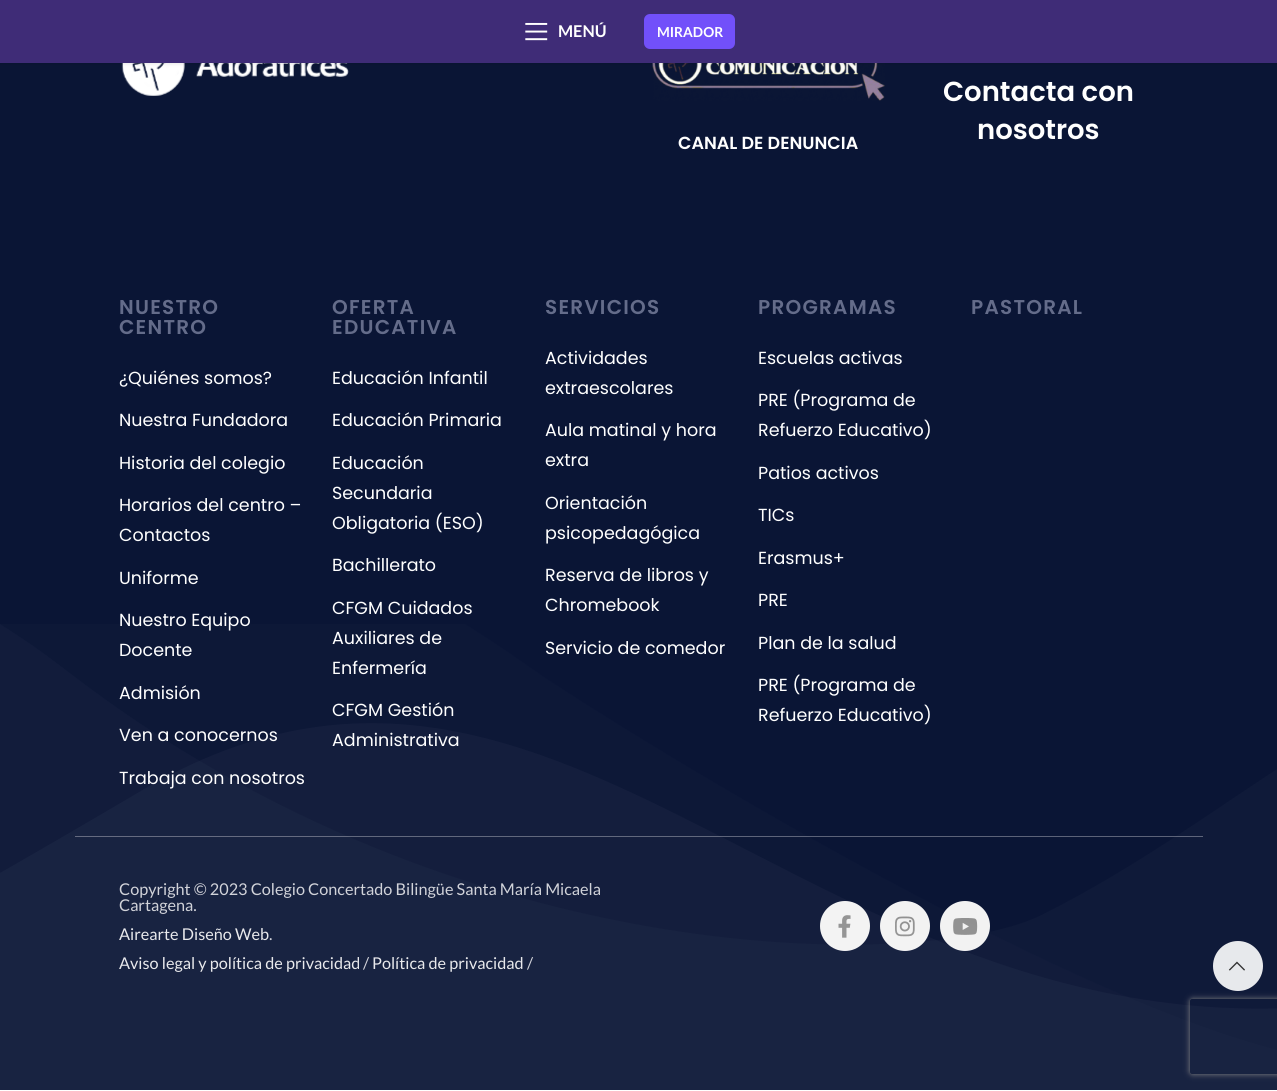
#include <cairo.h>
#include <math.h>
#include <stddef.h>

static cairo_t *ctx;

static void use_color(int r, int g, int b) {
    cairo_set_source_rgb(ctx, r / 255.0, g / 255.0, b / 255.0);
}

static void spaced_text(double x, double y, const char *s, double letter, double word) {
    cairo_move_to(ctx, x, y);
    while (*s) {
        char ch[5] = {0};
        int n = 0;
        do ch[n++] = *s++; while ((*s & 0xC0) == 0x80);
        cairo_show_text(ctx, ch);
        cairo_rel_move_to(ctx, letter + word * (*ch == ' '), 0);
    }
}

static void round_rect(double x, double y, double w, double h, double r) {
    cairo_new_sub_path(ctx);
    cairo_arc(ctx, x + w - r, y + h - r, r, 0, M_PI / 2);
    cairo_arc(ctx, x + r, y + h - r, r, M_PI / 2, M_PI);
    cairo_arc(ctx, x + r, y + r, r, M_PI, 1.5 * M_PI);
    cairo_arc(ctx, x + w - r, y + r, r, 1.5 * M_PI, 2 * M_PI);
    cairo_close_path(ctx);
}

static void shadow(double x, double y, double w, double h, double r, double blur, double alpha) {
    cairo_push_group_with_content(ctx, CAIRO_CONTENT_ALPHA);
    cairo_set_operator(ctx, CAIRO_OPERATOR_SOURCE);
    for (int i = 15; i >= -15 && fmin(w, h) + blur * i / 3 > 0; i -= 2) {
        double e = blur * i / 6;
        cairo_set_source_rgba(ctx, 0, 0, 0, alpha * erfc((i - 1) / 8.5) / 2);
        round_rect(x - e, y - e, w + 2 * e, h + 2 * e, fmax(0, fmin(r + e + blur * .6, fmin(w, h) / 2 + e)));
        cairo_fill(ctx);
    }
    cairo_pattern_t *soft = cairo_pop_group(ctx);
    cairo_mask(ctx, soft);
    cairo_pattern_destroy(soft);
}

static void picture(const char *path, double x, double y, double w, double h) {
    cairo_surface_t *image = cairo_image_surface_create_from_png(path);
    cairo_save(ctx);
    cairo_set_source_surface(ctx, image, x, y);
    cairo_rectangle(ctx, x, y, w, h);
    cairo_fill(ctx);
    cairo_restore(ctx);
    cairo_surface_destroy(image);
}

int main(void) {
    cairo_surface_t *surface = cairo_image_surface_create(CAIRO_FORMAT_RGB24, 1277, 1091);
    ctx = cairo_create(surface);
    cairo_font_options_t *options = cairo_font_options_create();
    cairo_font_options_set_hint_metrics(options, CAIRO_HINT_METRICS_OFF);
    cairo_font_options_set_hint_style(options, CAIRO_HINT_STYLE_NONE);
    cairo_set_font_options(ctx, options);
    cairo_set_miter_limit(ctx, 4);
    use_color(255, 255, 255);
    cairo_paint(ctx);
    use_color(10, 21, 53);
    cairo_rectangle(ctx, 0, 63, 1277, 1027);
    cairo_fill(ctx);
    picture("img2.png", 121, 63, 228, 33);
    picture("img3.png", 652, 63, 233, 38);
    use_color(0, 0, 0);
    shadow(0, 1, 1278, 63, 0, 2, 0.1);
    use_color(63, 44, 119);
    cairo_rectangle(ctx, 0, 0, 1277, 63);
    cairo_fill(ctx);
    picture("img1.png", 525, 22, 23, 19);
    cairo_select_font_face(ctx, "Lato", CAIRO_FONT_SLANT_NORMAL, CAIRO_FONT_WEIGHT_BOLD);
    cairo_set_font_size(ctx, 16.25);
    use_color(255, 255, 255);
    cairo_move_to(ctx, 558, 37);
    cairo_show_text(ctx, "MENÚ");
    use_color(114, 80, 250);
    round_rect(644, 14, 91, 35, 6);
    cairo_fill(ctx);
    cairo_set_font_size(ctx, 13.75);
    use_color(255, 255, 255);
    cairo_move_to(ctx, 657, 37);
    cairo_show_text(ctx, "MIRADOR");
    cairo_select_font_face(ctx, "Poppins SemiBold", CAIRO_FONT_SLANT_NORMAL, CAIRO_FONT_WEIGHT_NORMAL);
    cairo_set_font_size(ctx, 27.5);
    cairo_move_to(ctx, 943, 101);
    cairo_show_text(ctx, "Contacta con");
    cairo_move_to(ctx, 977, 139);
    cairo_show_text(ctx, "nosotros");
    cairo_set_font_size(ctx, 17.5);
    cairo_move_to(ctx, 678, 149);
    cairo_show_text(ctx, "CANAL DE DENUNCIA");
    cairo_set_font_size(ctx, 20);
    use_color(100, 108, 138);
    spaced_text(119, 314, "NUESTRO", 1.25, 0);
    spaced_text(119, 334, "CENTRO", 1.25, 0);
    cairo_select_font_face(ctx, "Poppins", CAIRO_FONT_SLANT_NORMAL, CAIRO_FONT_WEIGHT_NORMAL);
    cairo_set_font_size(ctx, 17.5);
    use_color(255, 255, 255);
    cairo_move_to(ctx, 119, 384);
    cairo_show_text(ctx, "¿Quiénes somos?");
    cairo_move_to(ctx, 119, 426);
    cairo_show_text(ctx, "Nuestra Fundadora");
    cairo_move_to(ctx, 119, 469);
    cairo_show_text(ctx, "Historia del colegio");
    cairo_move_to(ctx, 119, 511);
    cairo_show_text(ctx, "Horarios del centro –");
    cairo_move_to(ctx, 119, 541);
    cairo_show_text(ctx, "Contactos");
    cairo_move_to(ctx, 119, 584);
    cairo_show_text(ctx, "Uniforme");
    cairo_move_to(ctx, 119, 626);
    cairo_show_text(ctx, "Nuestro Equipo");
    cairo_move_to(ctx, 119, 656);
    cairo_show_text(ctx, "Docente");
    cairo_move_to(ctx, 119, 699);
    cairo_show_text(ctx, "Admisión");
    cairo_move_to(ctx, 119, 741);
    cairo_show_text(ctx, "Ven a conocernos");
    cairo_move_to(ctx, 119, 784);
    cairo_show_text(ctx, "Trabaja con nosotros");
    cairo_select_font_face(ctx, "Poppins SemiBold", CAIRO_FONT_SLANT_NORMAL, CAIRO_FONT_WEIGHT_NORMAL);
    cairo_set_font_size(ctx, 20);
    use_color(100, 108, 138);
    spaced_text(332, 314, "OFERTA", 1.25, 0);
    spaced_text(332, 334, "EDUCATIVA", 1.25, 0);
    cairo_select_font_face(ctx, "Poppins", CAIRO_FONT_SLANT_NORMAL, CAIRO_FONT_WEIGHT_NORMAL);
    cairo_set_font_size(ctx, 17.5);
    use_color(255, 255, 255);
    cairo_move_to(ctx, 332, 384);
    cairo_show_text(ctx, "Educación Infantil");
    cairo_move_to(ctx, 332, 426);
    cairo_show_text(ctx, "Educación Primaria");
    cairo_move_to(ctx, 332, 469);
    cairo_show_text(ctx, "Educación");
    cairo_move_to(ctx, 332, 499);
    cairo_show_text(ctx, "Secundaria");
    cairo_move_to(ctx, 332, 529);
    cairo_show_text(ctx, "Obligatoria (ESO)");
    cairo_move_to(ctx, 332, 571);
    cairo_show_text(ctx, "Bachillerato");
    cairo_move_to(ctx, 332, 614);
    cairo_show_text(ctx, "CFGM Cuidados");
    cairo_move_to(ctx, 332, 644);
    cairo_show_text(ctx, "Auxiliares de");
    cairo_move_to(ctx, 332, 674);
    cairo_show_text(ctx, "Enfermería");
    cairo_move_to(ctx, 332, 716);
    cairo_show_text(ctx, "CFGM Gestión");
    cairo_move_to(ctx, 332, 746);
    cairo_show_text(ctx, "Administrativa");
    cairo_select_font_face(ctx, "Poppins SemiBold", CAIRO_FONT_SLANT_NORMAL, CAIRO_FONT_WEIGHT_NORMAL);
    cairo_set_font_size(ctx, 20);
    use_color(100, 108, 138);
    spaced_text(545, 314, "SERVICIOS", 1.25, 0);
    cairo_select_font_face(ctx, "Poppins", CAIRO_FONT_SLANT_NORMAL, CAIRO_FONT_WEIGHT_NORMAL);
    cairo_set_font_size(ctx, 17.5);
    use_color(255, 255, 255);
    cairo_move_to(ctx, 545, 364);
    cairo_show_text(ctx, "Actividades");
    cairo_move_to(ctx, 545, 394);
    cairo_show_text(ctx, "extraescolares");
    cairo_move_to(ctx, 545, 436);
    cairo_show_text(ctx, "Aula matinal y hora");
    cairo_move_to(ctx, 545, 466);
    cairo_show_text(ctx, "extra");
    cairo_move_to(ctx, 545, 509);
    cairo_show_text(ctx, "Orientación");
    cairo_move_to(ctx, 545, 539);
    cairo_show_text(ctx, "psicopedagógica");
    cairo_move_to(ctx, 545, 581);
    cairo_show_text(ctx, "Reserva de libros y");
    cairo_move_to(ctx, 545, 611);
    cairo_show_text(ctx, "Chromebook");
    cairo_move_to(ctx, 545, 654);
    cairo_show_text(ctx, "Servicio de comedor");
    cairo_select_font_face(ctx, "Poppins SemiBold", CAIRO_FONT_SLANT_NORMAL, CAIRO_FONT_WEIGHT_NORMAL);
    cairo_set_font_size(ctx, 20);
    use_color(100, 108, 138);
    spaced_text(758, 314, "PROGRAMAS", 1.25, 0);
    cairo_select_font_face(ctx, "Poppins", CAIRO_FONT_SLANT_NORMAL, CAIRO_FONT_WEIGHT_NORMAL);
    cairo_set_font_size(ctx, 17.5);
    use_color(255, 255, 255);
    cairo_move_to(ctx, 758, 364);
    cairo_show_text(ctx, "Escuelas activas");
    cairo_move_to(ctx, 758, 406);
    cairo_show_text(ctx, "PRE (Programa de");
    cairo_move_to(ctx, 758, 436);
    cairo_show_text(ctx, "Refuerzo Educativo)");
    cairo_move_to(ctx, 758, 479);
    cairo_show_text(ctx, "Patios activos");
    cairo_move_to(ctx, 758, 521);
    cairo_show_text(ctx, "TICs");
    cairo_move_to(ctx, 758, 564);
    cairo_show_text(ctx, "Erasmus+");
    cairo_move_to(ctx, 758, 606);
    cairo_show_text(ctx, "PRE");
    cairo_move_to(ctx, 758, 649);
    cairo_show_text(ctx, "Plan de la salud");
    cairo_move_to(ctx, 758, 691);
    cairo_show_text(ctx, "PRE (Programa de");
    cairo_move_to(ctx, 758, 721);
    cairo_show_text(ctx, "Refuerzo Educativo)");
    cairo_select_font_face(ctx, "Poppins SemiBold", CAIRO_FONT_SLANT_NORMAL, CAIRO_FONT_WEIGHT_NORMAL);
    cairo_set_font_size(ctx, 20);
    use_color(100, 108, 138);
    spaced_text(971, 314, "PASTORAL", 1.25, 0);
    use_color(91, 98, 120);
    cairo_rectangle(ctx, 75, 836, 1128, 1);
    cairo_fill(ctx);
    cairo_select_font_face(ctx, "Lato", CAIRO_FONT_SLANT_NORMAL, CAIRO_FONT_WEIGHT_NORMAL);
    cairo_set_font_size(ctx, 16.25);
    use_color(206, 208, 215);
    cairo_move_to(ctx, 119, 895);
    cairo_show_text(ctx, "Copyright © 2023 Colegio Concertado Bilingüe Santa María Micaela");
    cairo_move_to(ctx, 119, 911);
    cairo_show_text(ctx, "Cartagena.");
    use_color(231, 232, 235);
    cairo_move_to(ctx, 119, 940);
    cairo_show_text(ctx, "Airearte Diseño Web");
    use_color(206, 208, 215);
    cairo_move_to(ctx, 269, 940);
    cairo_show_text(ctx, ".");
    use_color(231, 232, 235);
    cairo_move_to(ctx, 119, 969);
    cairo_show_text(ctx, "Aviso legal y política de privacidad");
    use_color(206, 208, 215);
    cairo_move_to(ctx, 363, 969);
    cairo_show_text(ctx, "/");
    use_color(231, 232, 235);
    cairo_move_to(ctx, 372, 969);
    cairo_show_text(ctx, "Política de privacidad");
    use_color(206, 208, 215);
    cairo_move_to(ctx, 527, 969);
    cairo_show_text(ctx, "/");
    use_color(242, 242, 242);
    cairo_new_path(ctx);
    cairo_arc(ctx, 845, 926, 25, 0, 2 * M_PI);
    cairo_fill(ctx);
    picture("img4.png", 838, 915, 13, 23);
    cairo_arc(ctx, 905, 926, 25, 0, 2 * M_PI);
    cairo_fill(ctx);
    picture("img5.png", 895, 916, 20, 21);
    cairo_arc(ctx, 965, 926, 25, 0, 2 * M_PI);
    cairo_fill(ctx);
    picture("img6.png", 953, 918, 25, 17);
    cairo_save(ctx);
    cairo_set_fill_rule(ctx, CAIRO_FILL_RULE_EVEN_ODD);
    cairo_new_path(ctx);
    cairo_move_to(ctx, 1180, 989);
    cairo_line_to(ctx, 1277, 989);
    cairo_line_to(ctx, 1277, 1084);
    cairo_line_to(ctx, 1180, 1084);
    cairo_close_path(ctx);
    cairo_move_to(ctx, 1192.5, 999);
    cairo_line_to(ctx, 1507.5, 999);
    cairo_curve_to(ctx, 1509, 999, 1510, 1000, 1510, 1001.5);
    cairo_line_to(ctx, 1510, 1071.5);
    cairo_curve_to(ctx, 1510, 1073, 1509, 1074, 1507.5, 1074);
    cairo_line_to(ctx, 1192.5, 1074);
    cairo_curve_to(ctx, 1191, 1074, 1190, 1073, 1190, 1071.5);
    cairo_line_to(ctx, 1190, 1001.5);
    cairo_curve_to(ctx, 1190, 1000, 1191, 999, 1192.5, 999);
    cairo_close_path(ctx);
    cairo_clip(ctx);
    use_color(128, 128, 128);
    shadow(1190, 999, 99, 75, 2.5, 3, 1);
    cairo_restore(ctx);
    picture("img7.png", 0, 624, 1277, 466);
    cairo_set_source_rgba(ctx, 1, 1, 1, 0.9);
    cairo_arc(ctx, 1238, 966, 25, 0, 2 * M_PI);
    cairo_fill(ctx);
    picture("img8.png", 1228, 961, 17, 10);
    cairo_surface_write_to_png(surface, "result.png");
    cairo_font_options_destroy(options);
    cairo_destroy(ctx);
    cairo_surface_destroy(surface);
    return 0;
}
